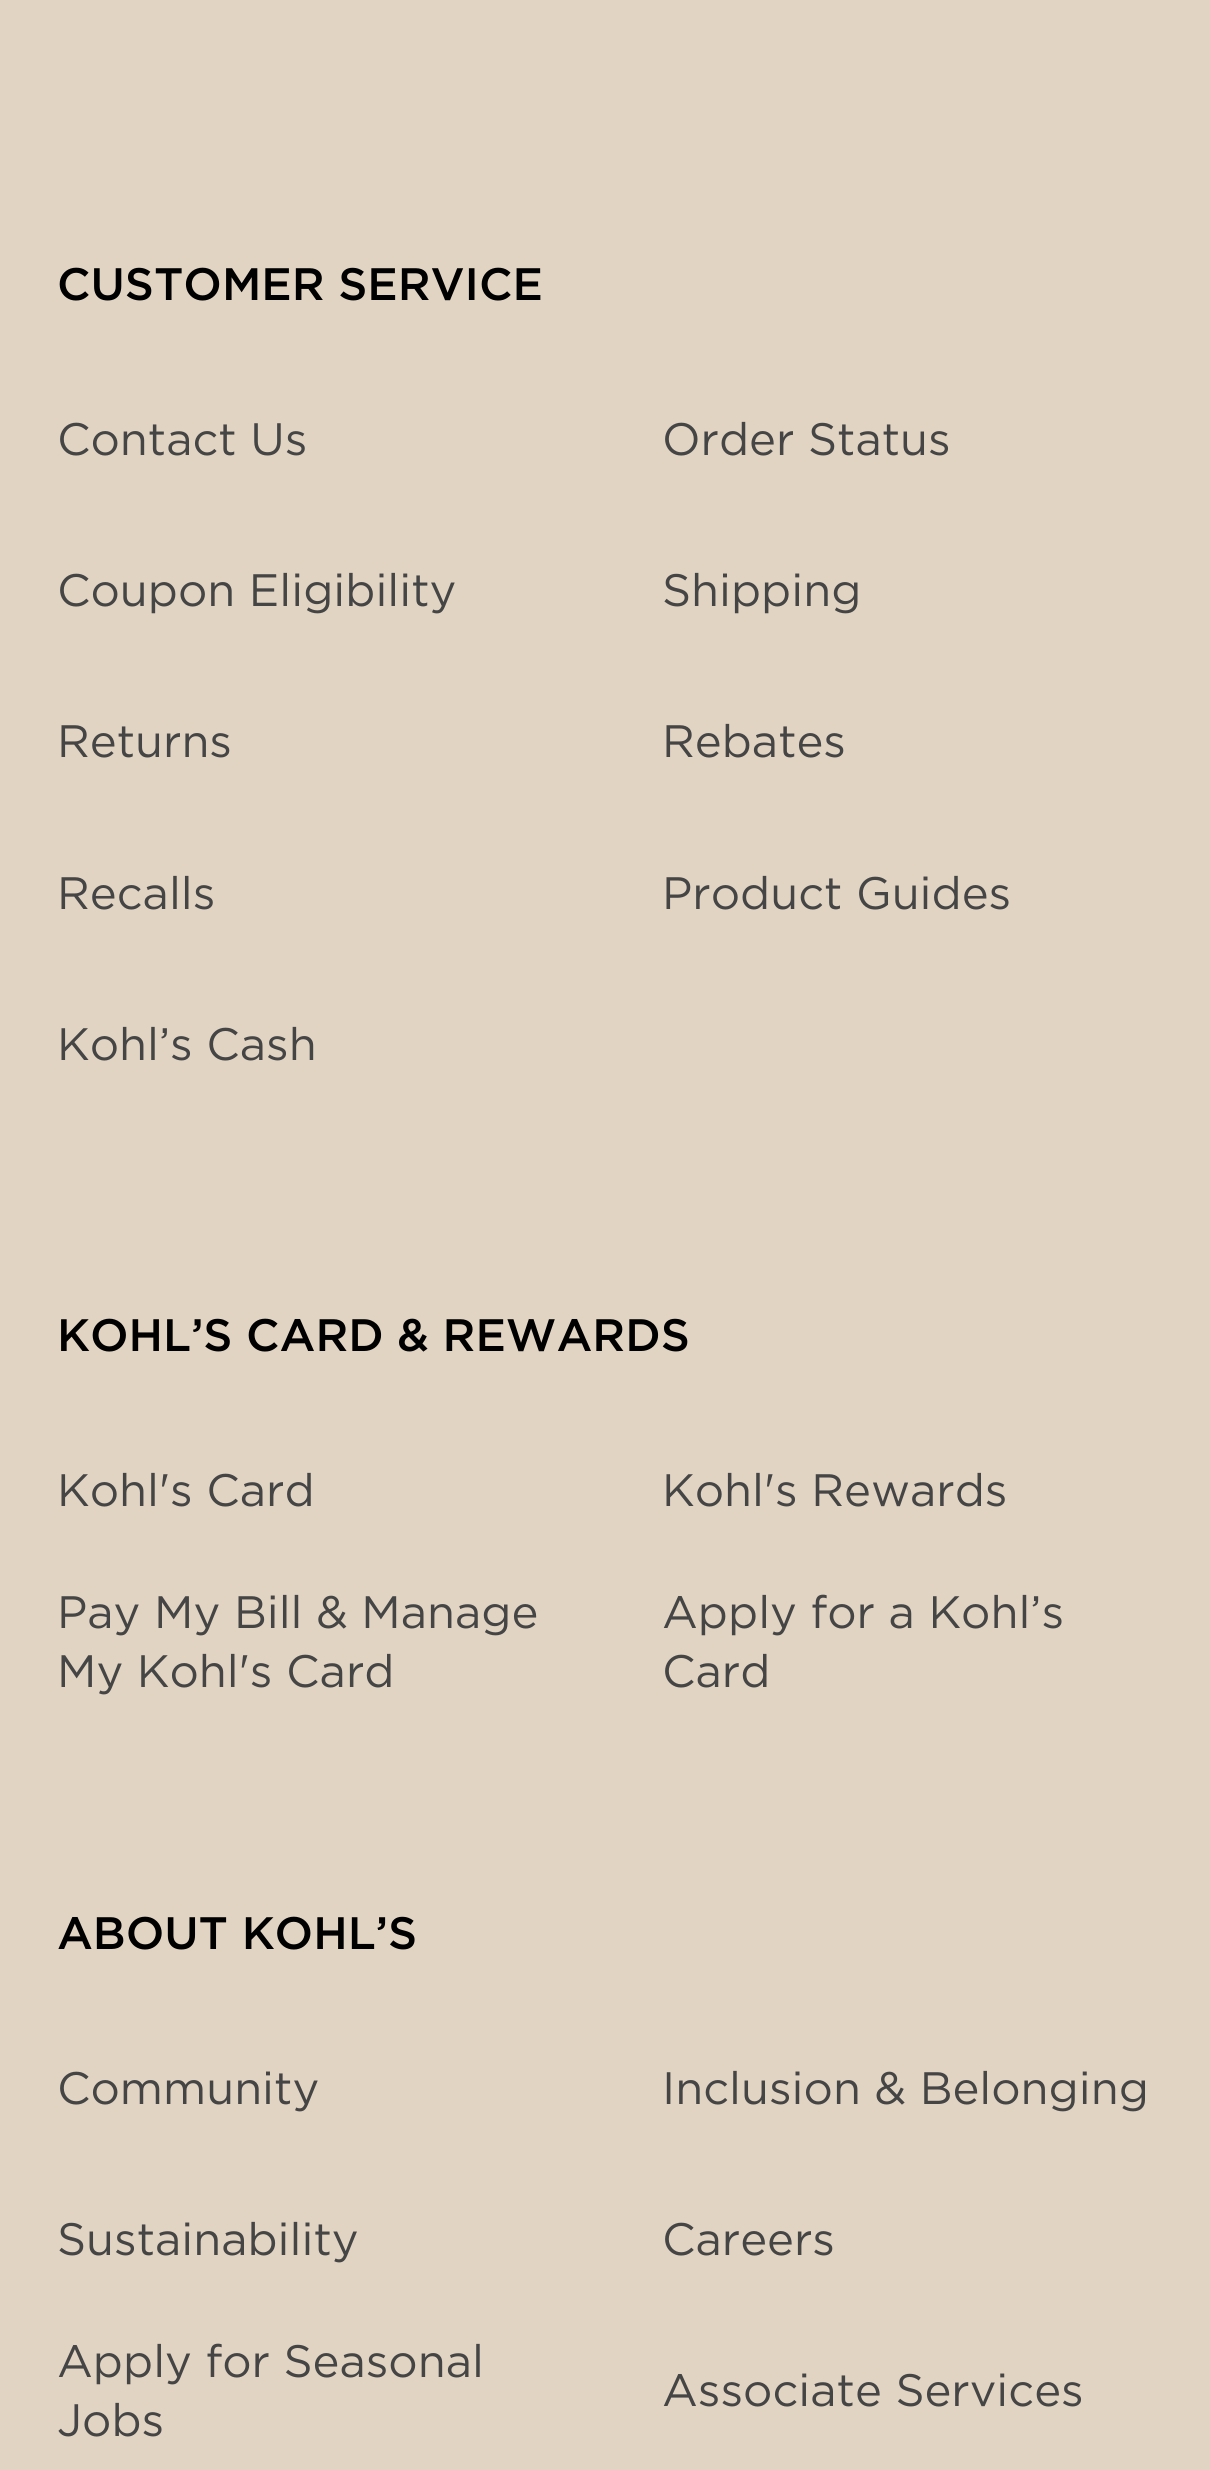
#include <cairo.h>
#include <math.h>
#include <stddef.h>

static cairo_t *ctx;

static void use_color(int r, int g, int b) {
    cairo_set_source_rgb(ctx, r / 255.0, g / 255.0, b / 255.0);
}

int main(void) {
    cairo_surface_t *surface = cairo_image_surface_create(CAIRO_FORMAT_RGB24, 1210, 2470);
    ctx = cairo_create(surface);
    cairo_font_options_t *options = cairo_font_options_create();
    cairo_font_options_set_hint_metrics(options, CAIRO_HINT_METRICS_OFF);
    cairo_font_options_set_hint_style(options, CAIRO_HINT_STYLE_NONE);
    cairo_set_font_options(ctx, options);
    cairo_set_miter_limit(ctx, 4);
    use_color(225, 212, 195);
    cairo_paint(ctx);
    cairo_select_font_face(ctx, "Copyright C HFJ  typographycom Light", CAIRO_FONT_SLANT_NORMAL, CAIRO_FONT_WEIGHT_NORMAL);
    cairo_set_font_size(ctx, 45.4);
    use_color(0, 0, 0);
    cairo_move_to(ctx, 57, 300);
    cairo_show_text(ctx, "CUSTOMER SERVICE");
    cairo_select_font_face(ctx, "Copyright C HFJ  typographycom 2 Light", CAIRO_FONT_SLANT_NORMAL, CAIRO_FONT_WEIGHT_NORMAL);
    use_color(69, 69, 69);
    cairo_move_to(ctx, 57, 455);
    cairo_show_text(ctx, "Contact Us");
    cairo_move_to(ctx, 662, 455);
    cairo_show_text(ctx, "Order Status");
    cairo_move_to(ctx, 57, 606);
    cairo_show_text(ctx, "Coupon Eligibility");
    cairo_move_to(ctx, 662, 606);
    cairo_show_text(ctx, "Shipping");
    cairo_move_to(ctx, 57, 757);
    cairo_show_text(ctx, "Returns");
    cairo_move_to(ctx, 662, 757);
    cairo_show_text(ctx, "Rebates");
    cairo_move_to(ctx, 57, 909);
    cairo_show_text(ctx, "Recalls");
    cairo_move_to(ctx, 662, 909);
    cairo_show_text(ctx, "Product Guides");
    cairo_move_to(ctx, 57, 1060);
    cairo_show_text(ctx, "Kohl’s Cash");
    cairo_select_font_face(ctx, "Copyright C HFJ  typographycom Light", CAIRO_FONT_SLANT_NORMAL, CAIRO_FONT_WEIGHT_NORMAL);
    use_color(0, 0, 0);
    cairo_move_to(ctx, 57, 1351);
    cairo_show_text(ctx, "KOHL’S CARD & REWARDS");
    cairo_select_font_face(ctx, "Copyright C HFJ  typographycom 2 Light", CAIRO_FONT_SLANT_NORMAL, CAIRO_FONT_WEIGHT_NORMAL);
    use_color(69, 69, 69);
    cairo_move_to(ctx, 57, 1506);
    cairo_show_text(ctx, "Kohl's Card");
    cairo_move_to(ctx, 662, 1506);
    cairo_show_text(ctx, "Kohl's Rewards");
    cairo_move_to(ctx, 57, 1628);
    cairo_show_text(ctx, "Pay My Bill & Manage");
    cairo_move_to(ctx, 57, 1687);
    cairo_show_text(ctx, "My Kohl's Card");
    cairo_move_to(ctx, 662, 1628);
    cairo_show_text(ctx, "Apply for a Kohl’s");
    cairo_move_to(ctx, 662, 1687);
    cairo_show_text(ctx, "Card");
    cairo_select_font_face(ctx, "Copyright C HFJ  typographycom Light", CAIRO_FONT_SLANT_NORMAL, CAIRO_FONT_WEIGHT_NORMAL);
    use_color(0, 0, 0);
    cairo_move_to(ctx, 57, 1949);
    cairo_show_text(ctx, "ABOUT KOHL’S");
    cairo_select_font_face(ctx, "Copyright C HFJ  typographycom 2 Light", CAIRO_FONT_SLANT_NORMAL, CAIRO_FONT_WEIGHT_NORMAL);
    use_color(69, 69, 69);
    cairo_move_to(ctx, 57, 2104);
    cairo_show_text(ctx, "Community");
    cairo_move_to(ctx, 662, 2104);
    cairo_show_text(ctx, "Inclusion & Belonging");
    cairo_move_to(ctx, 57, 2255);
    cairo_show_text(ctx, "Sustainability");
    cairo_move_to(ctx, 662, 2255);
    cairo_show_text(ctx, "Careers");
    cairo_move_to(ctx, 57, 2377);
    cairo_show_text(ctx, "Apply for Seasonal");
    cairo_move_to(ctx, 57, 2436);
    cairo_show_text(ctx, "Jobs");
    cairo_move_to(ctx, 662, 2406);
    cairo_show_text(ctx, "Associate Services");
    cairo_surface_write_to_png(surface, "result.png");
    cairo_font_options_destroy(options);
    cairo_destroy(ctx);
    cairo_surface_destroy(surface);
    return 0;
}
